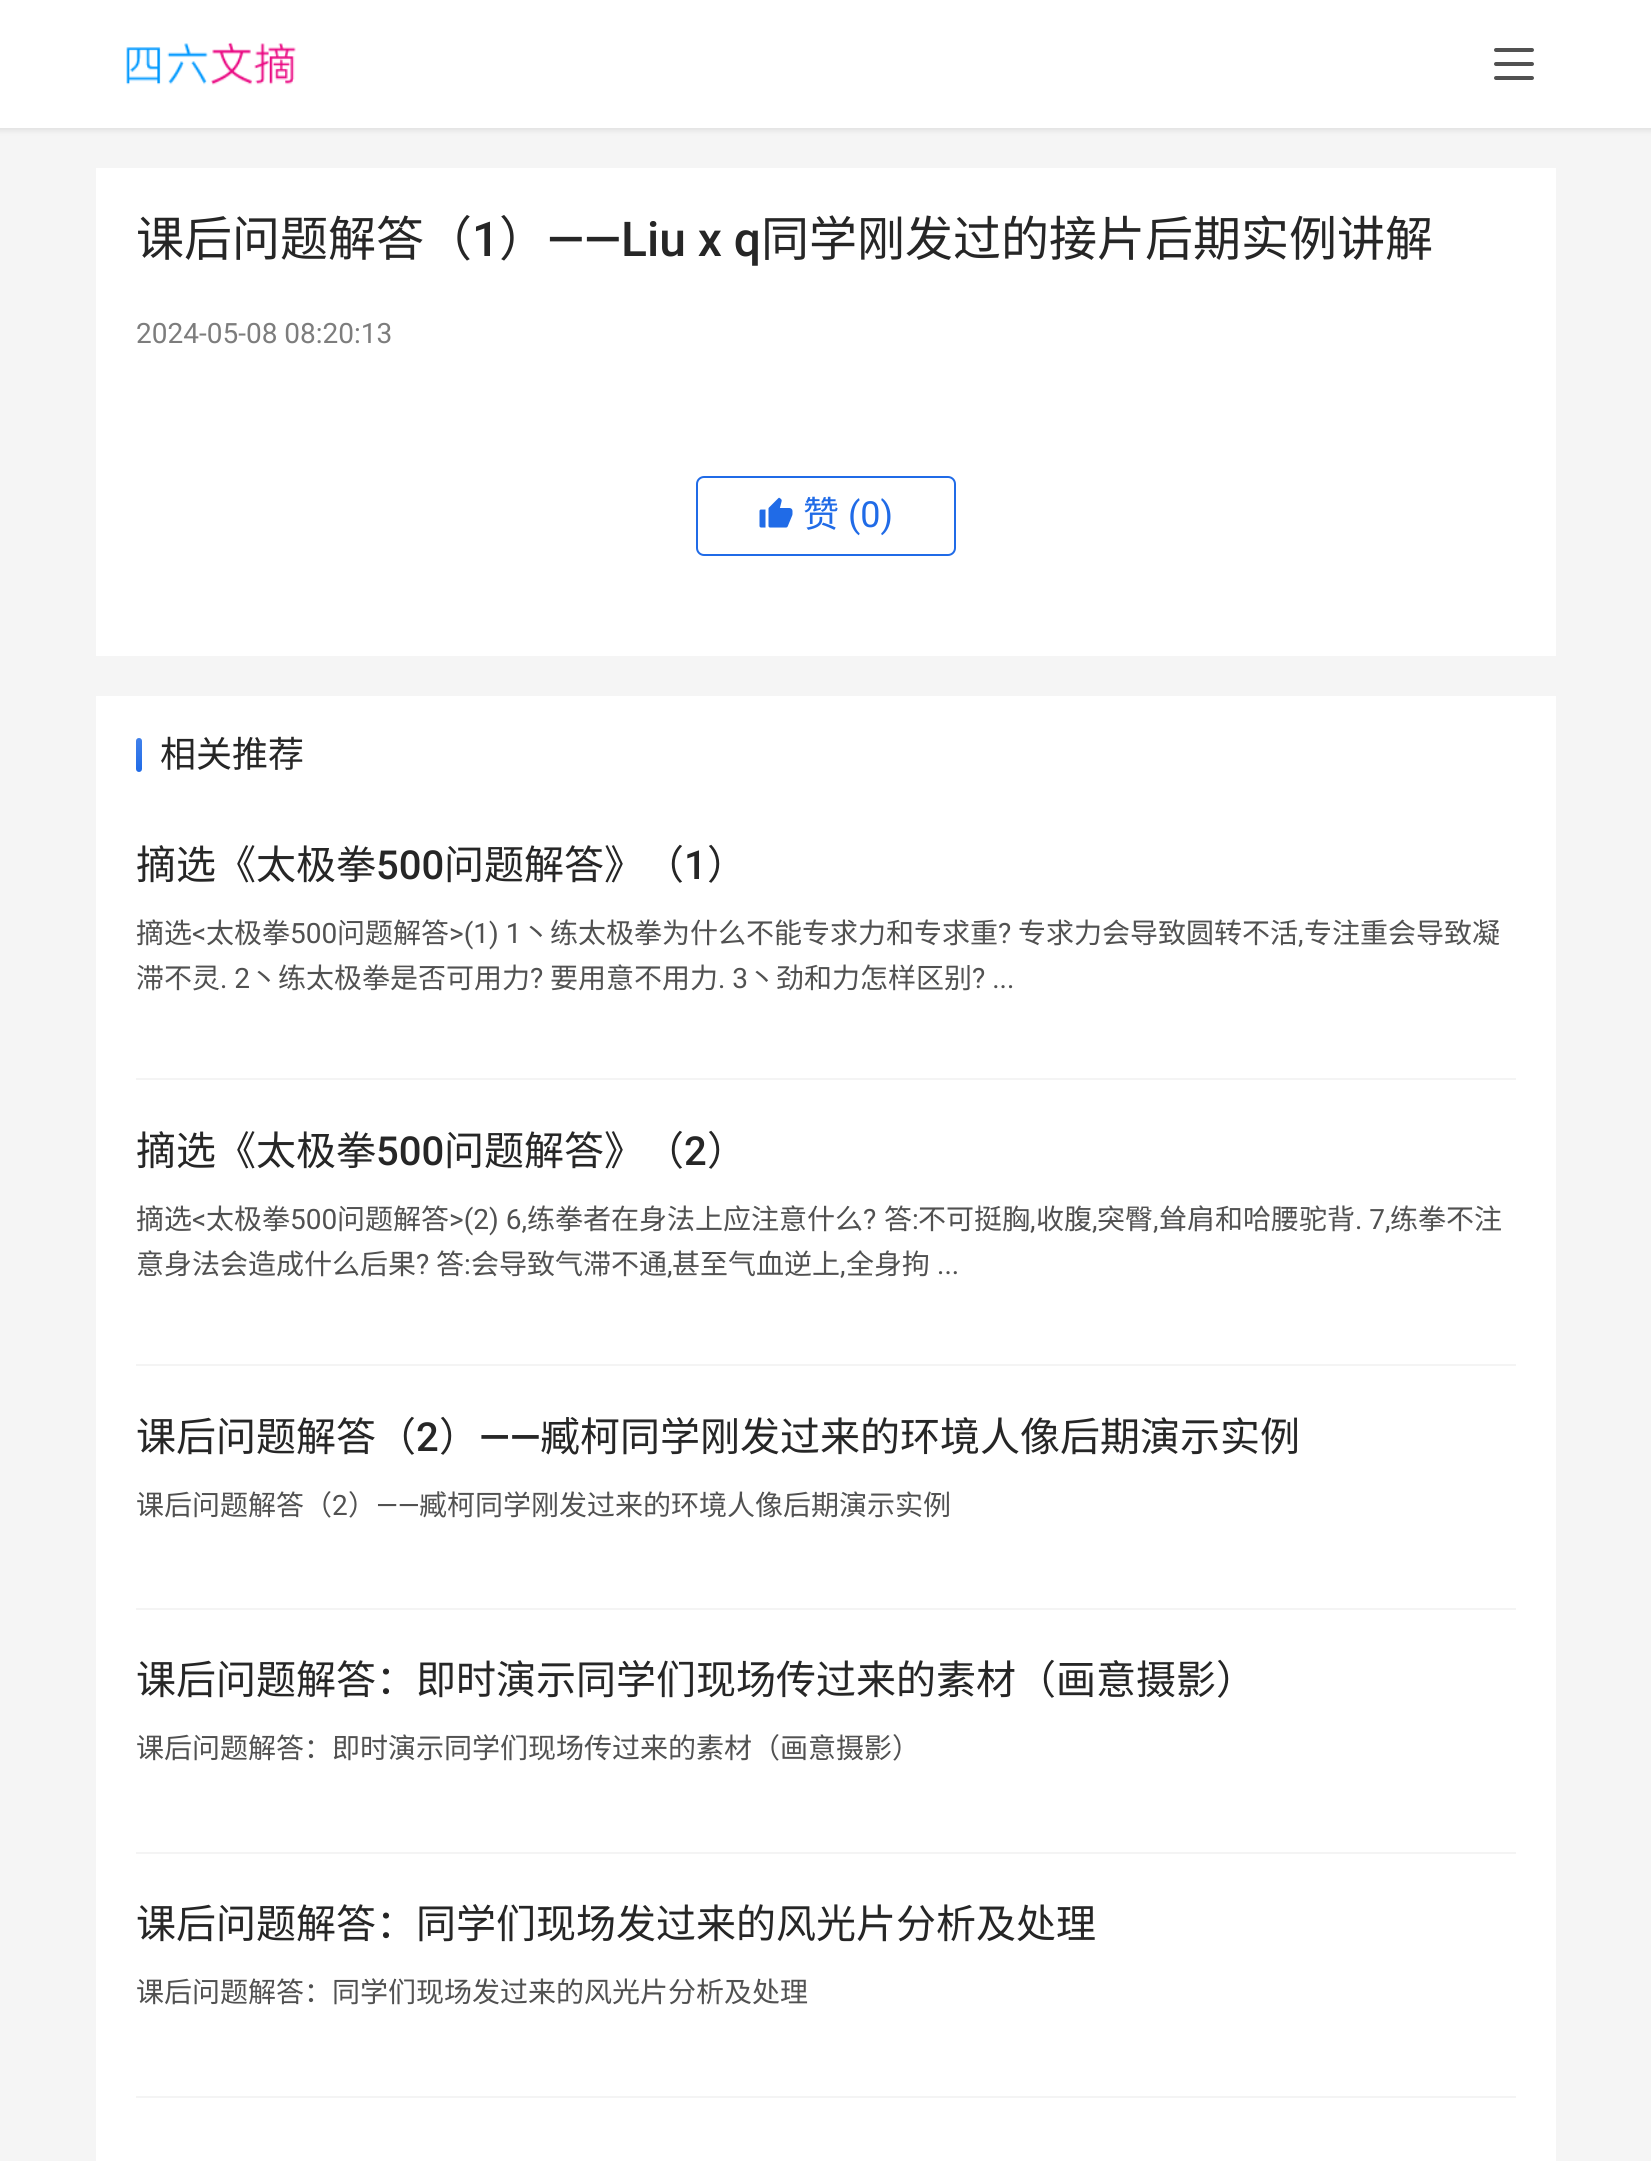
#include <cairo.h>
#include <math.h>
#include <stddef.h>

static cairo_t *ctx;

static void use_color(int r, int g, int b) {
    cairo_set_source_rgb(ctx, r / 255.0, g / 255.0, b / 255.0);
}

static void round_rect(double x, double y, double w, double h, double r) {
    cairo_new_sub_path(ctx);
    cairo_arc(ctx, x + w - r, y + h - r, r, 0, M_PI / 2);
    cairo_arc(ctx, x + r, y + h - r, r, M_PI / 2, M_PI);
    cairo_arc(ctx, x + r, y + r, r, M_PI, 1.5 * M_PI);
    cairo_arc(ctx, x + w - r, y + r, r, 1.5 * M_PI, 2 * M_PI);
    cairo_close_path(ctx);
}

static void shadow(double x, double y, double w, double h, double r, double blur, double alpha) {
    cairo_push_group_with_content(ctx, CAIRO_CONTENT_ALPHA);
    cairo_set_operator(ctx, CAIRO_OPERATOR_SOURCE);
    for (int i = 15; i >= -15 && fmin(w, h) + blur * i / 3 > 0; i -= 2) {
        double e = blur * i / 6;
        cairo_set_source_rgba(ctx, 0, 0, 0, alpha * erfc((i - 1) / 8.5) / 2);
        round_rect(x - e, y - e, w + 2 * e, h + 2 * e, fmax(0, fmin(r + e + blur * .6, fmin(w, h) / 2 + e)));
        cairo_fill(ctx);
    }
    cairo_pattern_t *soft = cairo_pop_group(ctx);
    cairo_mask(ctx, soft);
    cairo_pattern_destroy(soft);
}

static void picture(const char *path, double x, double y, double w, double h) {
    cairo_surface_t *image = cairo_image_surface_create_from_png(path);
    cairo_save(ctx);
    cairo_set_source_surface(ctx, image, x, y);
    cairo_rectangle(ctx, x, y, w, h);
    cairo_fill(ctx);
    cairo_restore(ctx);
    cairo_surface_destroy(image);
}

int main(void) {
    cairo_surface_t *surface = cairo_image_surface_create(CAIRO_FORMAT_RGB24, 1651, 2161);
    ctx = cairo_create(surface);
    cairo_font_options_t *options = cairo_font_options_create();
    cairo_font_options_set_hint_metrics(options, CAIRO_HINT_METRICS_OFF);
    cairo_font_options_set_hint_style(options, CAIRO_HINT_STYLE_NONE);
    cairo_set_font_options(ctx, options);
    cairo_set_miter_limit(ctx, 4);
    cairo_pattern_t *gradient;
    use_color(245, 245, 245);
    cairo_paint(ctx);
    use_color(0, 0, 0);
    shadow(-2, -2, 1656, 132, 0, 3, 0.1);
    use_color(255, 255, 255);
    cairo_rectangle(ctx, 0, 0, 1651, 128);
    cairo_fill(ctx);
    picture("img1.png", 126, 42, 170, 43);
    use_color(81, 81, 81);
    round_rect(1494, 48, 40, 4, 2);
    cairo_fill(ctx);
    round_rect(1494, 62, 40, 4, 2);
    cairo_fill(ctx);
    round_rect(1494, 76, 40, 4, 2);
    cairo_fill(ctx);
    use_color(255, 255, 255);
    cairo_rectangle(ctx, 96, 168, 1460, 488);
    cairo_fill(ctx);
    cairo_select_font_face(ctx, "Noto Sans CJK SC", CAIRO_FONT_SLANT_NORMAL, CAIRO_FONT_WEIGHT_NORMAL);
    cairo_set_font_size(ctx, 48);
    use_color(38, 38, 38);
    cairo_move_to(ctx, 136, 256);
    cairo_show_text(ctx, "课后问题解答（");
    cairo_select_font_face(ctx, "Roboto Medium", CAIRO_FONT_SLANT_NORMAL, CAIRO_FONT_WEIGHT_NORMAL);
    cairo_move_to(ctx, 472, 256);
    cairo_show_text(ctx, "1");
    cairo_select_font_face(ctx, "Noto Sans CJK SC", CAIRO_FONT_SLANT_NORMAL, CAIRO_FONT_WEIGHT_NORMAL);
    cairo_move_to(ctx, 499, 256);
    cairo_show_text(ctx, "）");
    cairo_select_font_face(ctx, "Roboto Medium", CAIRO_FONT_SLANT_NORMAL, CAIRO_FONT_WEIGHT_NORMAL);
    cairo_move_to(ctx, 547, 256);
    cairo_show_text(ctx, "——Liu x q");
    cairo_select_font_face(ctx, "Noto Sans CJK SC", CAIRO_FONT_SLANT_NORMAL, CAIRO_FONT_WEIGHT_NORMAL);
    cairo_move_to(ctx, 761, 256);
    cairo_show_text(ctx, "同学刚发过的接片后期实例讲解");
    cairo_select_font_face(ctx, "Roboto", CAIRO_FONT_SLANT_NORMAL, CAIRO_FONT_WEIGHT_NORMAL);
    cairo_set_font_size(ctx, 28);
    use_color(125, 125, 125);
    cairo_move_to(ctx, 136, 343);
    cairo_show_text(ctx, "2024-05-08 08:20:13");
    round_rect(697, 477, 258, 78, 7);
    use_color(32, 107, 231);
    cairo_stroke(ctx);
    picture("img2.png", 759, 497, 34, 31);
    cairo_select_font_face(ctx, "Noto Sans CJK SC", CAIRO_FONT_SLANT_NORMAL, CAIRO_FONT_WEIGHT_NORMAL);
    cairo_set_font_size(ctx, 36);
    cairo_move_to(ctx, 803, 527);
    cairo_show_text(ctx, "赞");
    cairo_select_font_face(ctx, "Roboto", CAIRO_FONT_SLANT_NORMAL, CAIRO_FONT_WEIGHT_NORMAL);
    cairo_move_to(ctx, 848, 527);
    cairo_show_text(ctx, "(0)");
    use_color(255, 255, 255);
    cairo_rectangle(ctx, 96, 696, 1460, 1465);
    cairo_fill(ctx);
    use_color(32, 107, 231);
    round_rect(136, 738, 6, 34, 3);
    cairo_fill(ctx);
    gradient = cairo_pattern_create_linear(139, 738, 139, 772);
    cairo_pattern_add_color_stop_rgba(gradient, 0, 1, 1, 1, 0.15);
    cairo_pattern_add_color_stop_rgba(gradient, 1, 1, 1, 1, 0);
    cairo_set_source(ctx, gradient);
    cairo_pattern_destroy(gradient);
    round_rect(136, 738, 6, 34, 3);
    cairo_fill(ctx);
    cairo_select_font_face(ctx, "Noto Sans CJK SC", CAIRO_FONT_SLANT_NORMAL, CAIRO_FONT_WEIGHT_NORMAL);
    use_color(38, 38, 38);
    cairo_move_to(ctx, 160, 767);
    cairo_show_text(ctx, "相关推荐");
    use_color(244, 244, 244);
    cairo_rectangle(ctx, 136, 1078, 1380, 2);
    cairo_fill(ctx);
    cairo_set_font_size(ctx, 40);
    use_color(38, 38, 38);
    cairo_move_to(ctx, 136, 879);
    cairo_show_text(ctx, "摘选《太极拳");
    cairo_select_font_face(ctx, "Roboto Medium", CAIRO_FONT_SLANT_NORMAL, CAIRO_FONT_WEIGHT_NORMAL);
    cairo_move_to(ctx, 376, 879);
    cairo_show_text(ctx, "500");
    cairo_select_font_face(ctx, "Noto Sans CJK SC", CAIRO_FONT_SLANT_NORMAL, CAIRO_FONT_WEIGHT_NORMAL);
    cairo_move_to(ctx, 444, 879);
    cairo_show_text(ctx, "问题解答》（");
    cairo_select_font_face(ctx, "Roboto Medium", CAIRO_FONT_SLANT_NORMAL, CAIRO_FONT_WEIGHT_NORMAL);
    cairo_move_to(ctx, 684, 879);
    cairo_show_text(ctx, "1");
    cairo_select_font_face(ctx, "Noto Sans CJK SC", CAIRO_FONT_SLANT_NORMAL, CAIRO_FONT_WEIGHT_NORMAL);
    cairo_move_to(ctx, 707, 879);
    cairo_show_text(ctx, "）");
    cairo_set_font_size(ctx, 28);
    use_color(81, 81, 81);
    cairo_move_to(ctx, 136, 943);
    cairo_show_text(ctx, "摘选");
    cairo_select_font_face(ctx, "Roboto", CAIRO_FONT_SLANT_NORMAL, CAIRO_FONT_WEIGHT_NORMAL);
    cairo_move_to(ctx, 192, 943);
    cairo_show_text(ctx, "<");
    cairo_select_font_face(ctx, "Noto Sans CJK SC", CAIRO_FONT_SLANT_NORMAL, CAIRO_FONT_WEIGHT_NORMAL);
    cairo_move_to(ctx, 206, 943);
    cairo_show_text(ctx, "太极拳");
    cairo_select_font_face(ctx, "Roboto", CAIRO_FONT_SLANT_NORMAL, CAIRO_FONT_WEIGHT_NORMAL);
    cairo_move_to(ctx, 290, 943);
    cairo_show_text(ctx, "500");
    cairo_select_font_face(ctx, "Noto Sans CJK SC", CAIRO_FONT_SLANT_NORMAL, CAIRO_FONT_WEIGHT_NORMAL);
    cairo_move_to(ctx, 337, 943);
    cairo_show_text(ctx, "问题解答");
    cairo_select_font_face(ctx, "Roboto", CAIRO_FONT_SLANT_NORMAL, CAIRO_FONT_WEIGHT_NORMAL);
    cairo_move_to(ctx, 449, 943);
    cairo_show_text(ctx, ">(1) 1");
    cairo_select_font_face(ctx, "Noto Sans CJK SC", CAIRO_FONT_SLANT_NORMAL, CAIRO_FONT_WEIGHT_NORMAL);
    cairo_move_to(ctx, 522, 943);
    cairo_show_text(ctx, "丶练太极拳为什么不能专求力和专求重");
    cairo_select_font_face(ctx, "Roboto", CAIRO_FONT_SLANT_NORMAL, CAIRO_FONT_WEIGHT_NORMAL);
    cairo_move_to(ctx, 998, 943);
    cairo_show_text(ctx, "?");
    cairo_select_font_face(ctx, "Noto Sans CJK SC", CAIRO_FONT_SLANT_NORMAL, CAIRO_FONT_WEIGHT_NORMAL);
    cairo_move_to(ctx, 1018, 943);
    cairo_show_text(ctx, "专求力会导致圆转不活");
    cairo_move_to(ctx, 1304, 943);
    cairo_show_text(ctx, "专注重会导致凝");
    cairo_select_font_face(ctx, "Roboto", CAIRO_FONT_SLANT_NORMAL, CAIRO_FONT_WEIGHT_NORMAL);
    cairo_move_to(ctx, 1298, 943);
    cairo_show_text(ctx, ",");
    cairo_select_font_face(ctx, "Noto Sans CJK SC", CAIRO_FONT_SLANT_NORMAL, CAIRO_FONT_WEIGHT_NORMAL);
    cairo_move_to(ctx, 136, 988);
    cairo_show_text(ctx, "滞不灵");
    cairo_select_font_face(ctx, "Roboto", CAIRO_FONT_SLANT_NORMAL, CAIRO_FONT_WEIGHT_NORMAL);
    cairo_move_to(ctx, 220, 988);
    cairo_show_text(ctx, ". 2");
    cairo_select_font_face(ctx, "Noto Sans CJK SC", CAIRO_FONT_SLANT_NORMAL, CAIRO_FONT_WEIGHT_NORMAL);
    cairo_move_to(ctx, 250, 988);
    cairo_show_text(ctx, "丶练太极拳是否可用力");
    cairo_select_font_face(ctx, "Roboto", CAIRO_FONT_SLANT_NORMAL, CAIRO_FONT_WEIGHT_NORMAL);
    cairo_move_to(ctx, 530, 988);
    cairo_show_text(ctx, "?");
    cairo_select_font_face(ctx, "Noto Sans CJK SC", CAIRO_FONT_SLANT_NORMAL, CAIRO_FONT_WEIGHT_NORMAL);
    cairo_move_to(ctx, 550, 988);
    cairo_show_text(ctx, "要用意不用力");
    cairo_select_font_face(ctx, "Roboto", CAIRO_FONT_SLANT_NORMAL, CAIRO_FONT_WEIGHT_NORMAL);
    cairo_move_to(ctx, 718, 988);
    cairo_show_text(ctx, ". 3");
    cairo_select_font_face(ctx, "Noto Sans CJK SC", CAIRO_FONT_SLANT_NORMAL, CAIRO_FONT_WEIGHT_NORMAL);
    cairo_move_to(ctx, 748, 988);
    cairo_show_text(ctx, "丶劲和力怎样区别");
    cairo_select_font_face(ctx, "Roboto", CAIRO_FONT_SLANT_NORMAL, CAIRO_FONT_WEIGHT_NORMAL);
    cairo_move_to(ctx, 972, 988);
    cairo_show_text(ctx, "? ...");
    use_color(244, 244, 244);
    cairo_rectangle(ctx, 136, 1364, 1380, 2);
    cairo_fill(ctx);
    cairo_select_font_face(ctx, "Noto Sans CJK SC", CAIRO_FONT_SLANT_NORMAL, CAIRO_FONT_WEIGHT_NORMAL);
    cairo_set_font_size(ctx, 40);
    use_color(38, 38, 38);
    cairo_move_to(ctx, 136, 1165);
    cairo_show_text(ctx, "摘选《太极拳");
    cairo_select_font_face(ctx, "Roboto Medium", CAIRO_FONT_SLANT_NORMAL, CAIRO_FONT_WEIGHT_NORMAL);
    cairo_move_to(ctx, 376, 1165);
    cairo_show_text(ctx, "500");
    cairo_select_font_face(ctx, "Noto Sans CJK SC", CAIRO_FONT_SLANT_NORMAL, CAIRO_FONT_WEIGHT_NORMAL);
    cairo_move_to(ctx, 444, 1165);
    cairo_show_text(ctx, "问题解答》（");
    cairo_select_font_face(ctx, "Roboto Medium", CAIRO_FONT_SLANT_NORMAL, CAIRO_FONT_WEIGHT_NORMAL);
    cairo_move_to(ctx, 684, 1165);
    cairo_show_text(ctx, "2");
    cairo_select_font_face(ctx, "Noto Sans CJK SC", CAIRO_FONT_SLANT_NORMAL, CAIRO_FONT_WEIGHT_NORMAL);
    cairo_move_to(ctx, 707, 1165);
    cairo_show_text(ctx, "）");
    cairo_set_font_size(ctx, 28);
    use_color(81, 81, 81);
    cairo_move_to(ctx, 136, 1229);
    cairo_show_text(ctx, "摘选");
    cairo_select_font_face(ctx, "Roboto", CAIRO_FONT_SLANT_NORMAL, CAIRO_FONT_WEIGHT_NORMAL);
    cairo_move_to(ctx, 192, 1229);
    cairo_show_text(ctx, "<");
    cairo_select_font_face(ctx, "Noto Sans CJK SC", CAIRO_FONT_SLANT_NORMAL, CAIRO_FONT_WEIGHT_NORMAL);
    cairo_move_to(ctx, 206, 1229);
    cairo_show_text(ctx, "太极拳");
    cairo_select_font_face(ctx, "Roboto", CAIRO_FONT_SLANT_NORMAL, CAIRO_FONT_WEIGHT_NORMAL);
    cairo_move_to(ctx, 290, 1229);
    cairo_show_text(ctx, "500");
    cairo_select_font_face(ctx, "Noto Sans CJK SC", CAIRO_FONT_SLANT_NORMAL, CAIRO_FONT_WEIGHT_NORMAL);
    cairo_move_to(ctx, 337, 1229);
    cairo_show_text(ctx, "问题解答");
    cairo_select_font_face(ctx, "Roboto", CAIRO_FONT_SLANT_NORMAL, CAIRO_FONT_WEIGHT_NORMAL);
    cairo_move_to(ctx, 449, 1229);
    cairo_show_text(ctx, ">(2) 6,");
    cairo_select_font_face(ctx, "Noto Sans CJK SC", CAIRO_FONT_SLANT_NORMAL, CAIRO_FONT_WEIGHT_NORMAL);
    cairo_move_to(ctx, 527, 1229);
    cairo_show_text(ctx, "练拳者在身法上应注意什么");
    cairo_select_font_face(ctx, "Roboto", CAIRO_FONT_SLANT_NORMAL, CAIRO_FONT_WEIGHT_NORMAL);
    cairo_move_to(ctx, 863, 1229);
    cairo_show_text(ctx, "?");
    cairo_select_font_face(ctx, "Noto Sans CJK SC", CAIRO_FONT_SLANT_NORMAL, CAIRO_FONT_WEIGHT_NORMAL);
    cairo_move_to(ctx, 884, 1229);
    cairo_show_text(ctx, "答");
    cairo_select_font_face(ctx, "Roboto", CAIRO_FONT_SLANT_NORMAL, CAIRO_FONT_WEIGHT_NORMAL);
    cairo_move_to(ctx, 912, 1229);
    cairo_show_text(ctx, ":");
    cairo_select_font_face(ctx, "Noto Sans CJK SC", CAIRO_FONT_SLANT_NORMAL, CAIRO_FONT_WEIGHT_NORMAL);
    cairo_move_to(ctx, 918, 1229);
    cairo_show_text(ctx, "不可挺胸");
    cairo_select_font_face(ctx, "Roboto", CAIRO_FONT_SLANT_NORMAL, CAIRO_FONT_WEIGHT_NORMAL);
    cairo_move_to(ctx, 1030, 1229);
    cairo_show_text(ctx, ",");
    cairo_select_font_face(ctx, "Noto Sans CJK SC", CAIRO_FONT_SLANT_NORMAL, CAIRO_FONT_WEIGHT_NORMAL);
    cairo_move_to(ctx, 1036, 1229);
    cairo_show_text(ctx, "收腹");
    cairo_select_font_face(ctx, "Roboto", CAIRO_FONT_SLANT_NORMAL, CAIRO_FONT_WEIGHT_NORMAL);
    cairo_move_to(ctx, 1092, 1229);
    cairo_show_text(ctx, ",");
    cairo_select_font_face(ctx, "Noto Sans CJK SC", CAIRO_FONT_SLANT_NORMAL, CAIRO_FONT_WEIGHT_NORMAL);
    cairo_move_to(ctx, 1097, 1229);
    cairo_show_text(ctx, "突臀");
    cairo_select_font_face(ctx, "Roboto", CAIRO_FONT_SLANT_NORMAL, CAIRO_FONT_WEIGHT_NORMAL);
    cairo_move_to(ctx, 1153, 1229);
    cairo_show_text(ctx, ",");
    cairo_select_font_face(ctx, "Noto Sans CJK SC", CAIRO_FONT_SLANT_NORMAL, CAIRO_FONT_WEIGHT_NORMAL);
    cairo_move_to(ctx, 1159, 1229);
    cairo_show_text(ctx, "耸肩和哈腰驼背");
    cairo_select_font_face(ctx, "Roboto", CAIRO_FONT_SLANT_NORMAL, CAIRO_FONT_WEIGHT_NORMAL);
    cairo_move_to(ctx, 1355, 1229);
    cairo_show_text(ctx, ". 7,");
    cairo_select_font_face(ctx, "Noto Sans CJK SC", CAIRO_FONT_SLANT_NORMAL, CAIRO_FONT_WEIGHT_NORMAL);
    cairo_move_to(ctx, 1390, 1229);
    cairo_show_text(ctx, "练拳不注");
    cairo_move_to(ctx, 136, 1274);
    cairo_show_text(ctx, "意身法会造成什么后果");
    cairo_select_font_face(ctx, "Roboto", CAIRO_FONT_SLANT_NORMAL, CAIRO_FONT_WEIGHT_NORMAL);
    cairo_move_to(ctx, 416, 1274);
    cairo_show_text(ctx, "?");
    cairo_select_font_face(ctx, "Noto Sans CJK SC", CAIRO_FONT_SLANT_NORMAL, CAIRO_FONT_WEIGHT_NORMAL);
    cairo_move_to(ctx, 436, 1274);
    cairo_show_text(ctx, "答");
    cairo_select_font_face(ctx, "Roboto", CAIRO_FONT_SLANT_NORMAL, CAIRO_FONT_WEIGHT_NORMAL);
    cairo_move_to(ctx, 464, 1274);
    cairo_show_text(ctx, ":");
    cairo_select_font_face(ctx, "Noto Sans CJK SC", CAIRO_FONT_SLANT_NORMAL, CAIRO_FONT_WEIGHT_NORMAL);
    cairo_move_to(ctx, 471, 1274);
    cairo_show_text(ctx, "会导致气滞不通");
    cairo_select_font_face(ctx, "Roboto", CAIRO_FONT_SLANT_NORMAL, CAIRO_FONT_WEIGHT_NORMAL);
    cairo_move_to(ctx, 667, 1274);
    cairo_show_text(ctx, ",");
    cairo_select_font_face(ctx, "Noto Sans CJK SC", CAIRO_FONT_SLANT_NORMAL, CAIRO_FONT_WEIGHT_NORMAL);
    cairo_move_to(ctx, 672, 1274);
    cairo_show_text(ctx, "甚至气血逆上");
    cairo_select_font_face(ctx, "Roboto", CAIRO_FONT_SLANT_NORMAL, CAIRO_FONT_WEIGHT_NORMAL);
    cairo_move_to(ctx, 840, 1274);
    cairo_show_text(ctx, ",");
    cairo_select_font_face(ctx, "Noto Sans CJK SC", CAIRO_FONT_SLANT_NORMAL, CAIRO_FONT_WEIGHT_NORMAL);
    cairo_move_to(ctx, 846, 1274);
    cairo_show_text(ctx, "全身拘");
    cairo_select_font_face(ctx, "Roboto", CAIRO_FONT_SLANT_NORMAL, CAIRO_FONT_WEIGHT_NORMAL);
    cairo_move_to(ctx, 937, 1274);
    cairo_show_text(ctx, "...");
    use_color(244, 244, 244);
    cairo_rectangle(ctx, 136, 1608, 1380, 2);
    cairo_fill(ctx);
    cairo_select_font_face(ctx, "Noto Sans CJK SC", CAIRO_FONT_SLANT_NORMAL, CAIRO_FONT_WEIGHT_NORMAL);
    cairo_set_font_size(ctx, 40);
    use_color(38, 38, 38);
    cairo_move_to(ctx, 136, 1451);
    cairo_show_text(ctx, "课后问题解答（");
    cairo_select_font_face(ctx, "Roboto Medium", CAIRO_FONT_SLANT_NORMAL, CAIRO_FONT_WEIGHT_NORMAL);
    cairo_move_to(ctx, 416, 1451);
    cairo_show_text(ctx, "2");
    cairo_select_font_face(ctx, "Noto Sans CJK SC", CAIRO_FONT_SLANT_NORMAL, CAIRO_FONT_WEIGHT_NORMAL);
    cairo_move_to(ctx, 439, 1451);
    cairo_show_text(ctx, "）");
    cairo_select_font_face(ctx, "Roboto Medium", CAIRO_FONT_SLANT_NORMAL, CAIRO_FONT_WEIGHT_NORMAL);
    cairo_move_to(ctx, 479, 1451);
    cairo_show_text(ctx, "——");
    cairo_select_font_face(ctx, "Noto Sans CJK SC", CAIRO_FONT_SLANT_NORMAL, CAIRO_FONT_WEIGHT_NORMAL);
    cairo_move_to(ctx, 540, 1451);
    cairo_show_text(ctx, "臧柯同学刚发过来的环境人像后期演示实例");
    cairo_set_font_size(ctx, 28);
    use_color(81, 81, 81);
    cairo_move_to(ctx, 136, 1515);
    cairo_show_text(ctx, "课后问题解答（");
    cairo_select_font_face(ctx, "Roboto", CAIRO_FONT_SLANT_NORMAL, CAIRO_FONT_WEIGHT_NORMAL);
    cairo_move_to(ctx, 332, 1515);
    cairo_show_text(ctx, "2");
    cairo_select_font_face(ctx, "Noto Sans CJK SC", CAIRO_FONT_SLANT_NORMAL, CAIRO_FONT_WEIGHT_NORMAL);
    cairo_move_to(ctx, 348, 1515);
    cairo_show_text(ctx, "）");
    cairo_select_font_face(ctx, "Roboto", CAIRO_FONT_SLANT_NORMAL, CAIRO_FONT_WEIGHT_NORMAL);
    cairo_move_to(ctx, 376, 1515);
    cairo_show_text(ctx, "——");
    cairo_select_font_face(ctx, "Noto Sans CJK SC", CAIRO_FONT_SLANT_NORMAL, CAIRO_FONT_WEIGHT_NORMAL);
    cairo_move_to(ctx, 419, 1515);
    cairo_show_text(ctx, "臧柯同学刚发过来的环境人像后期演示实例");
    use_color(244, 244, 244);
    cairo_rectangle(ctx, 136, 1852, 1380, 2);
    cairo_fill(ctx);
    cairo_set_font_size(ctx, 40);
    use_color(38, 38, 38);
    cairo_move_to(ctx, 136, 1694);
    cairo_show_text(ctx, "课后问题解答：即时演示同学们现场传过来的素材（画意摄影）");
    cairo_set_font_size(ctx, 28);
    use_color(81, 81, 81);
    cairo_move_to(ctx, 136, 1758);
    cairo_show_text(ctx, "课后问题解答：即时演示同学们现场传过来的素材（画意摄影）");
    use_color(244, 244, 244);
    cairo_rectangle(ctx, 136, 2096, 1380, 2);
    cairo_fill(ctx);
    cairo_set_font_size(ctx, 40);
    use_color(38, 38, 38);
    cairo_move_to(ctx, 136, 1938);
    cairo_show_text(ctx, "课后问题解答：同学们现场发过来的风光片分析及处理");
    cairo_set_font_size(ctx, 28);
    use_color(81, 81, 81);
    cairo_move_to(ctx, 136, 2002);
    cairo_show_text(ctx, "课后问题解答：同学们现场发过来的风光片分析及处理");
    cairo_surface_write_to_png(surface, "result.png");
    cairo_font_options_destroy(options);
    cairo_destroy(ctx);
    cairo_surface_destroy(surface);
    return 0;
}
